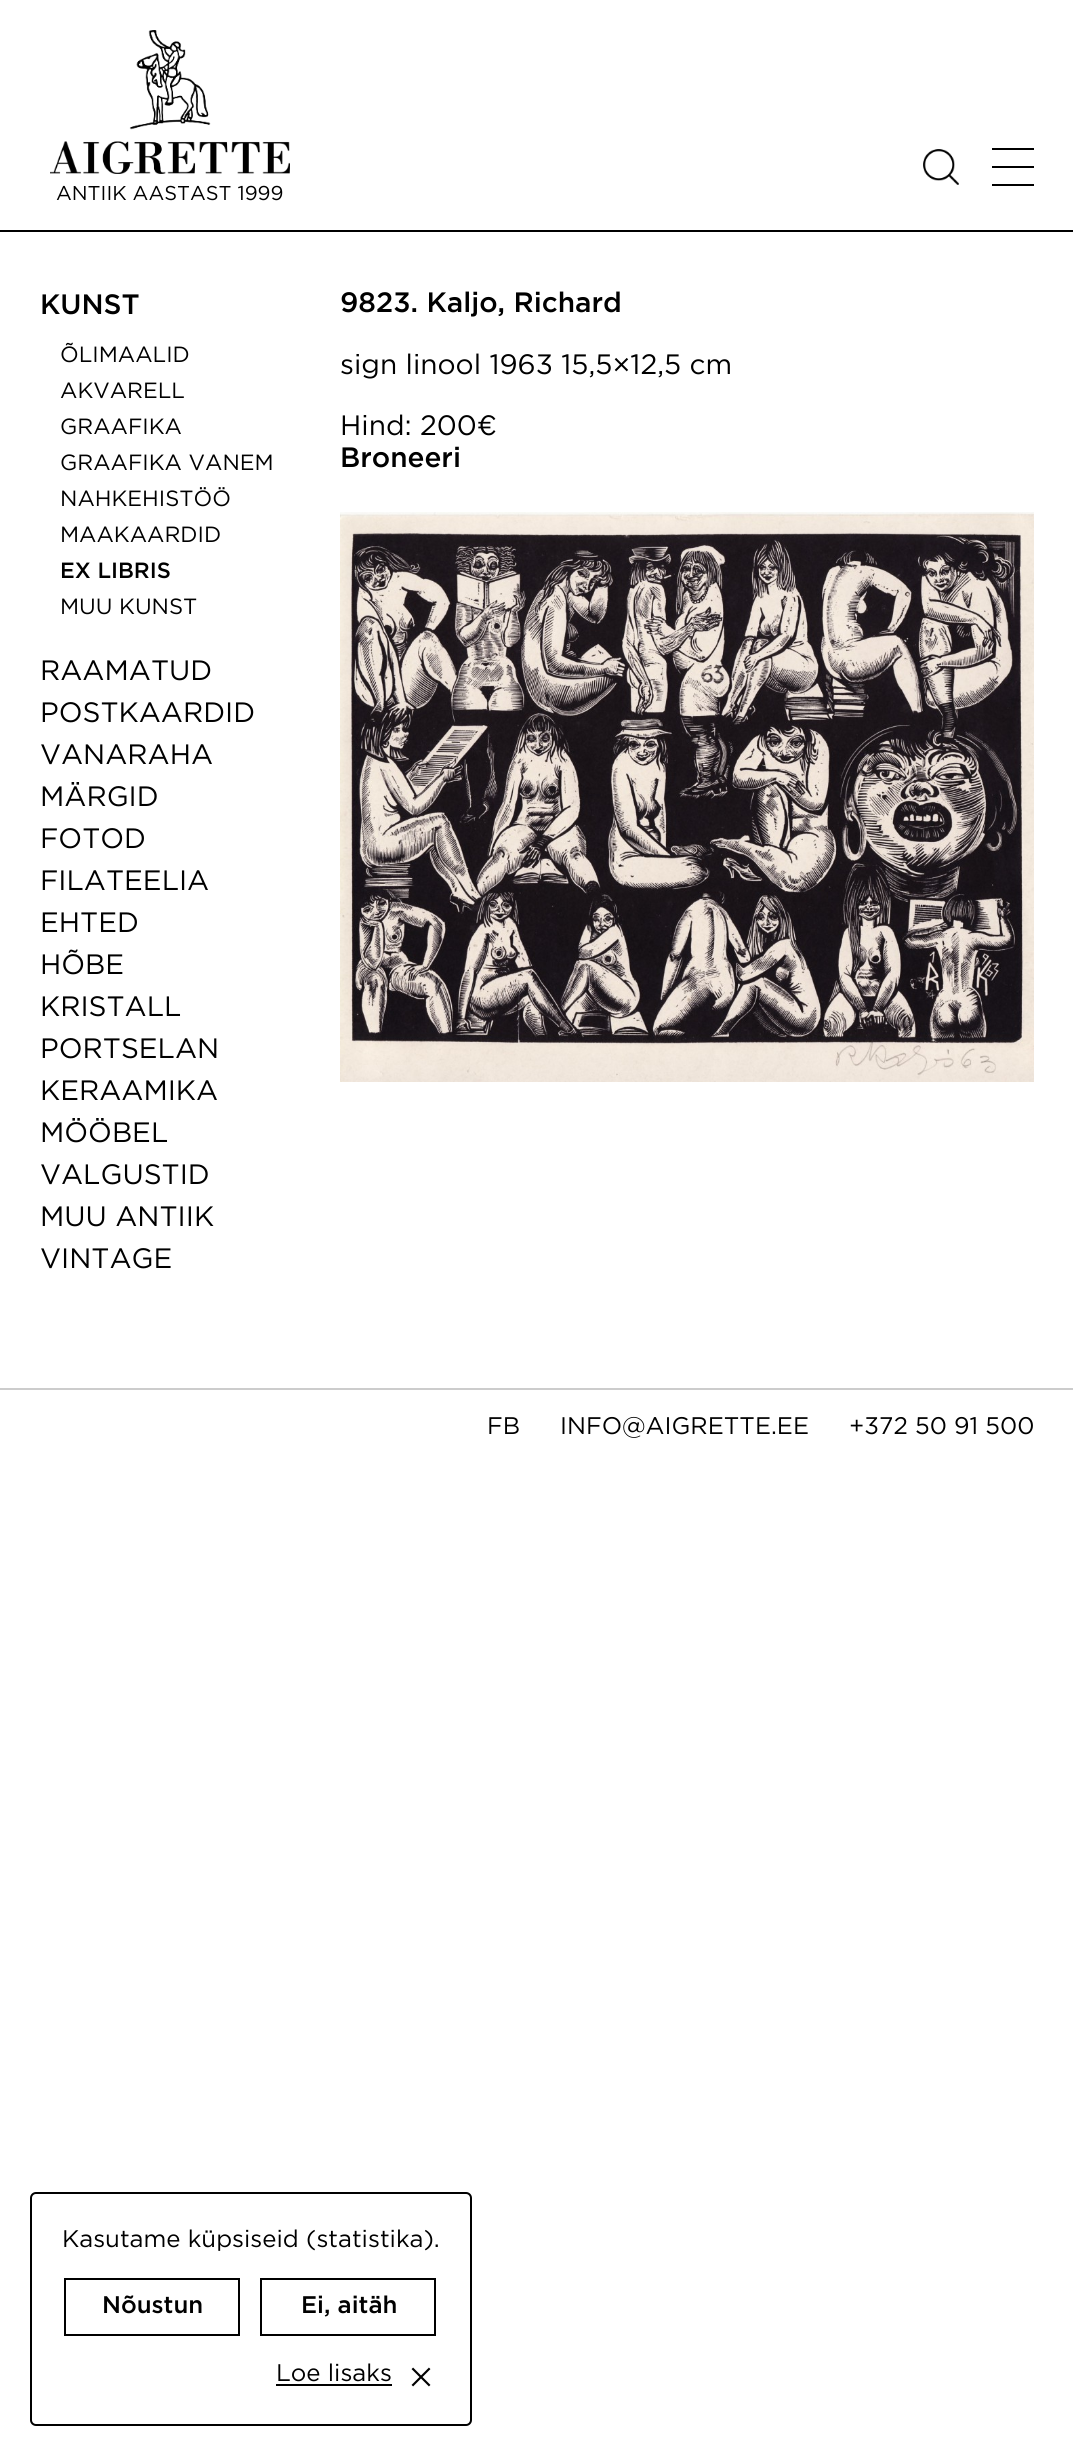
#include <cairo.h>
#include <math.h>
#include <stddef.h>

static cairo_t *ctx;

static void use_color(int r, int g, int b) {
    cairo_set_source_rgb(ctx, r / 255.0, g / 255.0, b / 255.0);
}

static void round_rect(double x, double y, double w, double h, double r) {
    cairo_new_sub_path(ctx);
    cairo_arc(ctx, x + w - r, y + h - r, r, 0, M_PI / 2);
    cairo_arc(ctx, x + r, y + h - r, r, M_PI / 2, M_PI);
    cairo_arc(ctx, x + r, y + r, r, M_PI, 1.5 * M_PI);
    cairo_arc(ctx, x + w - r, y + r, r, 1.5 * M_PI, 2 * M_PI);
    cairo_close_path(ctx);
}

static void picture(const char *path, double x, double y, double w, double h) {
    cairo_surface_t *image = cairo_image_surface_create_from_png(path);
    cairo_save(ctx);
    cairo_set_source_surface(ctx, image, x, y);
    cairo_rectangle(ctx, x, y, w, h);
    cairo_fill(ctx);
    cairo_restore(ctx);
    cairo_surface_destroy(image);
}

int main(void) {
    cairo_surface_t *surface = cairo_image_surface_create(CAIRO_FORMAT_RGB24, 1073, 2456);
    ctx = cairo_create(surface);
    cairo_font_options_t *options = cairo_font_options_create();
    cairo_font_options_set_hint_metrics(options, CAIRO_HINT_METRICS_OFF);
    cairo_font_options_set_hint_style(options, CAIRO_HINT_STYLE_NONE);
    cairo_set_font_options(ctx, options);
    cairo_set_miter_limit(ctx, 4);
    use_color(255, 255, 255);
    cairo_paint(ctx);
    use_color(0, 0, 0);
    cairo_rectangle(ctx, 0, 230, 1073, 2);
    cairo_fill(ctx);
    picture("img1.png", 923, 149, 36, 36);
    cairo_rectangle(ctx, 992, 148, 42, 2);
    cairo_fill(ctx);
    cairo_rectangle(ctx, 992, 166, 42, 2);
    cairo_fill(ctx);
    cairo_rectangle(ctx, 992, 184, 42, 2);
    cairo_fill(ctx);
    picture("img2.png", 50, 30, 240, 144);
    cairo_select_font_face(ctx, "Gotham", CAIRO_FONT_SLANT_NORMAL, CAIRO_FONT_WEIGHT_NORMAL);
    cairo_set_font_size(ctx, 20);
    cairo_move_to(ctx, 56, 200);
    cairo_show_text(ctx, "ANTIIK AASTAST 1999");
    cairo_select_font_face(ctx, "Gotham Medium", CAIRO_FONT_SLANT_NORMAL, CAIRO_FONT_WEIGHT_NORMAL);
    cairo_set_font_size(ctx, 28);
    cairo_move_to(ctx, 40, 314);
    cairo_show_text(ctx, "KUNST");
    cairo_select_font_face(ctx, "Gotham", CAIRO_FONT_SLANT_NORMAL, CAIRO_FONT_WEIGHT_NORMAL);
    cairo_set_font_size(ctx, 22);
    cairo_move_to(ctx, 60, 362);
    cairo_show_text(ctx, "ÕLIMAALID");
    cairo_move_to(ctx, 60, 398);
    cairo_show_text(ctx, "AKVARELL");
    cairo_move_to(ctx, 60, 434);
    cairo_show_text(ctx, "GRAAFIKA");
    cairo_move_to(ctx, 60, 470);
    cairo_show_text(ctx, "GRAAFIKA VANEM");
    cairo_move_to(ctx, 60, 506);
    cairo_show_text(ctx, "NAHKEHISTÖÖ");
    cairo_move_to(ctx, 60, 542);
    cairo_show_text(ctx, "MAAKAARDID");
    cairo_select_font_face(ctx, "Gotham Medium", CAIRO_FONT_SLANT_NORMAL, CAIRO_FONT_WEIGHT_NORMAL);
    cairo_move_to(ctx, 60, 578);
    cairo_show_text(ctx, "EX LIBRIS");
    cairo_select_font_face(ctx, "Gotham", CAIRO_FONT_SLANT_NORMAL, CAIRO_FONT_WEIGHT_NORMAL);
    cairo_move_to(ctx, 60, 614);
    cairo_show_text(ctx, "MUU KUNST");
    cairo_set_font_size(ctx, 28);
    cairo_move_to(ctx, 40, 680);
    cairo_show_text(ctx, "RAAMATUD");
    cairo_move_to(ctx, 40, 722);
    cairo_show_text(ctx, "POSTKAARDID");
    cairo_move_to(ctx, 40, 764);
    cairo_show_text(ctx, "VANARAHA");
    cairo_move_to(ctx, 40, 806);
    cairo_show_text(ctx, "MÄRGID");
    cairo_move_to(ctx, 40, 848);
    cairo_show_text(ctx, "FOTOD");
    cairo_move_to(ctx, 40, 890);
    cairo_show_text(ctx, "FILATEELIA");
    cairo_move_to(ctx, 40, 932);
    cairo_show_text(ctx, "EHTED");
    cairo_move_to(ctx, 40, 974);
    cairo_show_text(ctx, "HÕBE");
    cairo_move_to(ctx, 40, 1016);
    cairo_show_text(ctx, "KRISTALL");
    cairo_move_to(ctx, 40, 1058);
    cairo_show_text(ctx, "PORTSELAN");
    cairo_move_to(ctx, 40, 1100);
    cairo_show_text(ctx, "KERAAMIKA");
    cairo_move_to(ctx, 40, 1142);
    cairo_show_text(ctx, "MÖÖBEL");
    cairo_move_to(ctx, 40, 1184);
    cairo_show_text(ctx, "VALGUSTID");
    cairo_move_to(ctx, 40, 1226);
    cairo_show_text(ctx, "MUU ANTIIK");
    cairo_move_to(ctx, 40, 1268);
    cairo_show_text(ctx, "VINTAGE");
    cairo_select_font_face(ctx, "Gotham Medium", CAIRO_FONT_SLANT_NORMAL, CAIRO_FONT_WEIGHT_NORMAL);
    cairo_move_to(ctx, 340, 312);
    cairo_show_text(ctx, "9823. Kaljo, Richard");
    cairo_select_font_face(ctx, "Gotham", CAIRO_FONT_SLANT_NORMAL, CAIRO_FONT_WEIGHT_NORMAL);
    cairo_move_to(ctx, 340, 374);
    cairo_show_text(ctx, "sign linool 1963 15,5×12,5 cm");
    cairo_move_to(ctx, 340, 435);
    cairo_show_text(ctx, "Hind: 200€");
    cairo_select_font_face(ctx, "Gotham Medium", CAIRO_FONT_SLANT_NORMAL, CAIRO_FONT_WEIGHT_NORMAL);
    cairo_move_to(ctx, 340, 467);
    cairo_show_text(ctx, "Broneeri");
    picture("img3.png", 340, 512, 694, 570);
    use_color(204, 204, 204);
    cairo_rectangle(ctx, 0, 1388, 1073, 2);
    cairo_fill(ctx);
    cairo_select_font_face(ctx, "Gotham", CAIRO_FONT_SLANT_NORMAL, CAIRO_FONT_WEIGHT_NORMAL);
    cairo_set_font_size(ctx, 24);
    use_color(0, 0, 0);
    cairo_move_to(ctx, 487, 1434);
    cairo_show_text(ctx, "FB");
    cairo_move_to(ctx, 560, 1434);
    cairo_show_text(ctx, "INFO@AIGRETTE.EE");
    cairo_move_to(ctx, 849, 1434);
    cairo_show_text(ctx, "+372 50 91 500");
    round_rect(31, 2193, 440, 232, 5);
    cairo_stroke(ctx);
    cairo_move_to(ctx, 62, 2247);
    cairo_show_text(ctx, "Kasutame küpsiseid (statistika).");
    cairo_rectangle(ctx, 65, 2279, 174, 56);
    cairo_stroke(ctx);
    cairo_select_font_face(ctx, "Gotham Medium", CAIRO_FONT_SLANT_NORMAL, CAIRO_FONT_WEIGHT_NORMAL);
    cairo_move_to(ctx, 102, 2313);
    cairo_show_text(ctx, "Nõustun");
    cairo_rectangle(ctx, 261, 2279, 174, 56);
    cairo_stroke(ctx);
    cairo_move_to(ctx, 301, 2313);
    cairo_show_text(ctx, "Ei, aitäh");
    cairo_select_font_face(ctx, "Gotham", CAIRO_FONT_SLANT_NORMAL, CAIRO_FONT_WEIGHT_NORMAL);
    cairo_move_to(ctx, 276, 2381);
    cairo_show_text(ctx, "Loe lisaks");
    cairo_rectangle(ctx, 276, 2384, 116, 2);
    cairo_fill(ctx);
    picture("img4.png", 411, 2367, 20, 20);
    cairo_surface_write_to_png(surface, "result.png");
    cairo_font_options_destroy(options);
    cairo_destroy(ctx);
    cairo_surface_destroy(surface);
    return 0;
}
